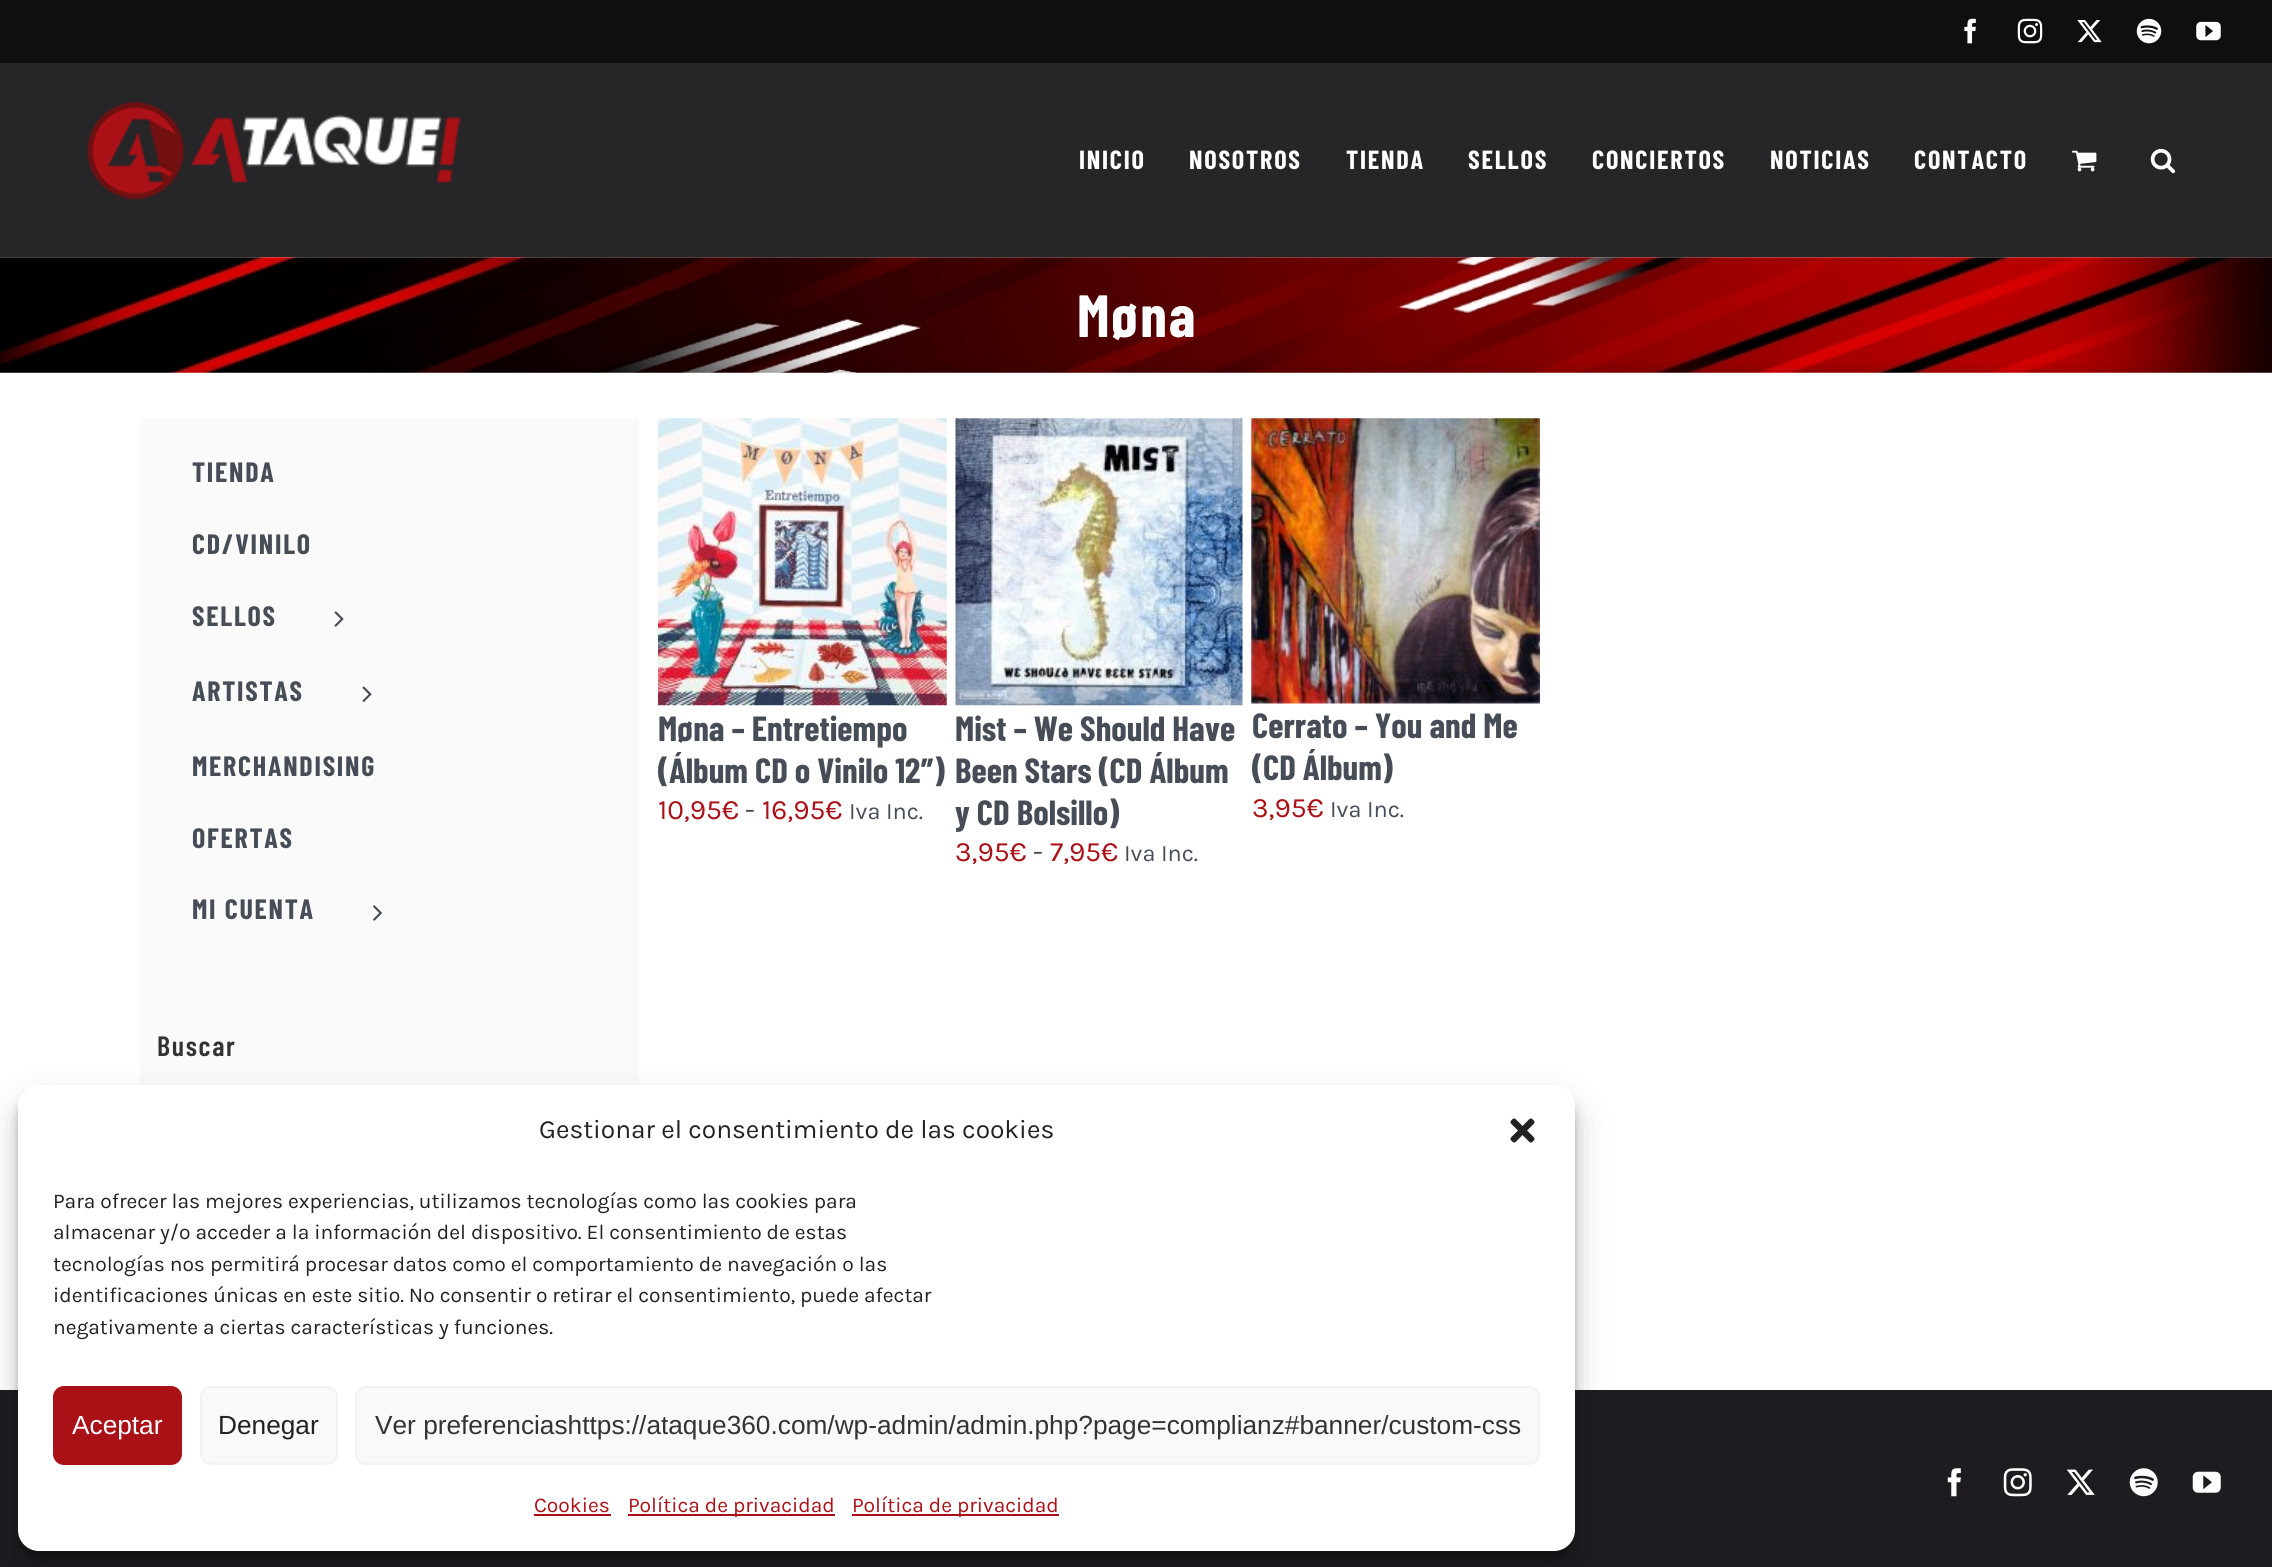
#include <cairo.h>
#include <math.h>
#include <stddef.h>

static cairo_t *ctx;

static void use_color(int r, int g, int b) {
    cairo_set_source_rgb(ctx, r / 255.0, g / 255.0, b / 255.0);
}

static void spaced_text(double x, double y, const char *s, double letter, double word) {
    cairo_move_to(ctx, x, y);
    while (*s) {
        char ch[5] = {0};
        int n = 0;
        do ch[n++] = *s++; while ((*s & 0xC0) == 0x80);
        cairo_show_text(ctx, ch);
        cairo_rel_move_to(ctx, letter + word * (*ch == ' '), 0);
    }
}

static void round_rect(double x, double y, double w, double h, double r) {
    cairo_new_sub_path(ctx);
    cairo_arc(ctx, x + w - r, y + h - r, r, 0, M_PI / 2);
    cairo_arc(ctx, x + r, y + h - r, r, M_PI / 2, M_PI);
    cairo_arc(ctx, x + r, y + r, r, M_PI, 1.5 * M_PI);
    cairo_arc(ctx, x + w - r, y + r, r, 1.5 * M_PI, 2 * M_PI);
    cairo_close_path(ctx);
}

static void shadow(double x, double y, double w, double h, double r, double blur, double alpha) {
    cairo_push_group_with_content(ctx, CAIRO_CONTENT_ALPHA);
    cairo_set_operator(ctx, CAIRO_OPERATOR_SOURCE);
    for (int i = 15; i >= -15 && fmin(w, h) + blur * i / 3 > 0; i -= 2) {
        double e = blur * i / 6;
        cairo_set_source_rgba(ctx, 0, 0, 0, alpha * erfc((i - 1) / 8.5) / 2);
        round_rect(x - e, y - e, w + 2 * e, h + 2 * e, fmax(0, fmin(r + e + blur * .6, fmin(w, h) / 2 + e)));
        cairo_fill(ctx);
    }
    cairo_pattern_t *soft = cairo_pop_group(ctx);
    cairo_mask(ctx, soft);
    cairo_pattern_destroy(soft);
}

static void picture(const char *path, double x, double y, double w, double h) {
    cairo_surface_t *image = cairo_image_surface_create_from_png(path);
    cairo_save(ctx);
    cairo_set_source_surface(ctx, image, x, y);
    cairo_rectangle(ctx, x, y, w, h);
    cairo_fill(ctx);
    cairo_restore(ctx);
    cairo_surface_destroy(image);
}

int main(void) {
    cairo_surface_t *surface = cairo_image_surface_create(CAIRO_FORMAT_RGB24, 2272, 1567);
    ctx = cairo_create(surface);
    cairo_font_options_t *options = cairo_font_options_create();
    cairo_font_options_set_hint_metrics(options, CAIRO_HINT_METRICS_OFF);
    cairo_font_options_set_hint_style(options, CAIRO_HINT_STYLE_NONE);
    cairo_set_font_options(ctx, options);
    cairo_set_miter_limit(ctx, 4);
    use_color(255, 255, 255);
    cairo_paint(ctx);
    use_color(15, 15, 16);
    cairo_rectangle(ctx, 0, 0, 2272, 63);
    cairo_fill(ctx);
    picture("img1.png", 1964, 18, 12, 26);
    picture("img2.png", 2017, 18, 26, 26);
    picture("img3.png", 2077, 20, 25, 23);
    picture("img4.png", 2136, 18, 26, 26);
    picture("img5.png", 2196, 21, 25, 20);
    use_color(38, 37, 40);
    cairo_rectangle(ctx, 0, 63, 2272, 194);
    cairo_fill(ctx);
    picture("img6.png", 87, 101, 374, 99);
    cairo_select_font_face(ctx, "Barlow Condensed", CAIRO_FONT_SLANT_NORMAL, CAIRO_FONT_WEIGHT_BOLD);
    cairo_set_font_size(ctx, 26.25);
    use_color(255, 255, 255);
    spaced_text(1079, 169, "INICIO", 1.75, 0);
    spaced_text(1189, 169, "NOSOTROS", 1.75, 0);
    spaced_text(1346, 169, "TIENDA", 1.75, 0);
    spaced_text(1468, 169, "SELLOS", 1.75, 0);
    spaced_text(1592, 169, "CONCIERTOS", 1.75, 0);
    spaced_text(1770, 169, "NOTICIAS", 1.75, 0);
    spaced_text(1914, 169, "CONTACTO", 1.75, 0);
    picture("img7.png", 2072, 150, 25, 22);
    picture("img8.png", 2150, 148, 26, 26);
    picture("img9.png", 0, 257, 2272, 116);
    cairo_set_font_size(ctx, 59.5);
    spaced_text(1077, 337, "Møna", 1.75, 0);
    use_color(250, 250, 250);
    cairo_rectangle(ctx, 140, 418, 499, 667);
    cairo_fill(ctx);
    cairo_set_font_size(ctx, 28);
    use_color(71, 77, 87);
    spaced_text(192, 482, "TIENDA", 1.75, 0);
    spaced_text(192, 554, "CD/VINILO", 1.75, 0);
    spaced_text(192, 626, "SELLOS", 1.75, 0);
    picture("img10.png", 334, 611, 10, 16);
    spaced_text(192, 701, "ARTISTAS", 1.75, 0);
    picture("img11.png", 362, 686, 10, 16);
    spaced_text(192, 776, "MERCHANDISING", 1.75, 0);
    spaced_text(192, 848, "OFERTAS", 1.75, 0);
    spaced_text(192, 919, "MI CUENTA", 1.75, 0);
    picture("img12.png", 373, 905, 9, 16);
    cairo_select_font_face(ctx, "Barlow Condensed SemiBold", CAIRO_FONT_SLANT_NORMAL, CAIRO_FONT_WEIGHT_NORMAL);
    use_color(51, 51, 51);
    spaced_text(157, 1056, "Buscar", 1.75, 0);
    picture("img13.png", 658, 418, 289, 288);
    cairo_select_font_face(ctx, "Barlow Condensed", CAIRO_FONT_SLANT_NORMAL, CAIRO_FONT_WEIGHT_BOLD);
    cairo_set_font_size(ctx, 35);
    use_color(71, 77, 87);
    cairo_move_to(ctx, 658, 741);
    cairo_show_text(ctx, "Møna – Entretiempo");
    cairo_move_to(ctx, 658, 783);
    cairo_show_text(ctx, "(Álbum CD o Vinilo 12″)");
    cairo_select_font_face(ctx, "Karla", CAIRO_FONT_SLANT_NORMAL, CAIRO_FONT_WEIGHT_NORMAL);
    cairo_set_font_size(ctx, 28);
    use_color(171, 17, 24);
    cairo_move_to(ctx, 658, 819);
    cairo_show_text(ctx, "10,95€");
    use_color(71, 77, 87);
    cairo_move_to(ctx, 745, 819);
    cairo_show_text(ctx, "-");
    use_color(171, 17, 24);
    cairo_move_to(ctx, 762, 819);
    cairo_show_text(ctx, "16,95€");
    cairo_set_font_size(ctx, 23.5);
    use_color(71, 77, 87);
    cairo_move_to(ctx, 849, 819);
    cairo_show_text(ctx, "Iva Inc.");
    picture("img14.png", 955, 418, 288, 288);
    cairo_select_font_face(ctx, "Barlow Condensed", CAIRO_FONT_SLANT_NORMAL, CAIRO_FONT_WEIGHT_BOLD);
    cairo_set_font_size(ctx, 35);
    cairo_move_to(ctx, 955, 741);
    cairo_show_text(ctx, "Mist – We Should Have");
    cairo_move_to(ctx, 955, 783);
    cairo_show_text(ctx, "Been Stars (CD Álbum");
    cairo_move_to(ctx, 955, 825);
    cairo_show_text(ctx, "y CD Bolsillo)");
    cairo_select_font_face(ctx, "Karla", CAIRO_FONT_SLANT_NORMAL, CAIRO_FONT_WEIGHT_NORMAL);
    cairo_set_font_size(ctx, 28);
    use_color(171, 17, 24);
    cairo_move_to(ctx, 955, 861);
    cairo_show_text(ctx, "3,95€");
    use_color(71, 77, 87);
    cairo_move_to(ctx, 1033, 861);
    cairo_show_text(ctx, "-");
    use_color(171, 17, 24);
    cairo_move_to(ctx, 1050, 861);
    cairo_show_text(ctx, "7,95€");
    cairo_set_font_size(ctx, 23.5);
    use_color(71, 77, 87);
    cairo_move_to(ctx, 1124, 861);
    cairo_show_text(ctx, "Iva Inc.");
    picture("img15.png", 1251, 418, 289, 286);
    cairo_select_font_face(ctx, "Barlow Condensed", CAIRO_FONT_SLANT_NORMAL, CAIRO_FONT_WEIGHT_BOLD);
    cairo_set_font_size(ctx, 35);
    cairo_move_to(ctx, 1252, 738);
    cairo_show_text(ctx, "Cerrato – You and Me");
    cairo_move_to(ctx, 1252, 780);
    cairo_show_text(ctx, "(CD Álbum)");
    cairo_select_font_face(ctx, "Karla", CAIRO_FONT_SLANT_NORMAL, CAIRO_FONT_WEIGHT_NORMAL);
    cairo_set_font_size(ctx, 28);
    use_color(171, 17, 24);
    cairo_move_to(ctx, 1252, 817);
    cairo_show_text(ctx, "3,95€");
    cairo_set_font_size(ctx, 23.5);
    use_color(71, 77, 87);
    cairo_move_to(ctx, 1330, 817);
    cairo_show_text(ctx, "Iva Inc.");
    use_color(30, 28, 33);
    cairo_rectangle(ctx, 0, 1390, 2272, 177);
    cairo_fill(ctx);
    picture("img16.png", 1947, 1468, 14, 29);
    picture("img17.png", 2003, 1468, 29, 29);
    picture("img18.png", 2066, 1469, 29, 26);
    picture("img19.png", 2129, 1468, 29, 29);
    picture("img20.png", 2192, 1471, 29, 22);
    use_color(0, 0, 0);
    shadow(18, 1096, 1557, 465, 21, 5, 0.23);
    shadow(18, 1103, 1557, 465, 21, 17.5, 0.19);
    use_color(255, 255, 255);
    round_rect(18, 1085, 1557, 466, 21);
    cairo_fill(ctx);
    cairo_set_font_size(ctx, 26.25);
    use_color(34, 34, 34);
    cairo_move_to(ctx, 539, 1138);
    cairo_show_text(ctx, "Gestionar el consentimiento de las cookies");
    picture("img21.png", 1510, 1118, 25, 25);
    cairo_set_font_size(ctx, 21);
    cairo_move_to(ctx, 53, 1208);
    cairo_show_text(ctx, "Para ofrecer las mejores experiencias, utilizamos tecnologías como las cookies para");
    cairo_move_to(ctx, 53, 1239);
    cairo_show_text(ctx, "almacenar y/o acceder a la información del dispositivo. El consentimiento de estas");
    cairo_move_to(ctx, 53, 1271);
    cairo_show_text(ctx, "tecnologías nos permitirá procesar datos como el comportamiento de navegación o las");
    cairo_move_to(ctx, 53, 1302);
    cairo_show_text(ctx, "identificaciones únicas en este sitio. No consentir o retirar el consentimiento, puede afectar");
    cairo_move_to(ctx, 53, 1334);
    cairo_show_text(ctx, "negativamente a ciertas características y funciones.");
    use_color(170, 17, 23);
    round_rect(54, 1387, 127, 77, 10);
    cairo_fill_preserve(ctx);
    cairo_stroke(ctx);
    cairo_select_font_face(ctx, "Liberation Sans", CAIRO_FONT_SLANT_NORMAL, CAIRO_FONT_WEIGHT_NORMAL);
    cairo_set_font_size(ctx, 26.25);
    use_color(255, 255, 255);
    cairo_move_to(ctx, 72, 1434);
    cairo_show_text(ctx, "Aceptar");
    use_color(249, 249, 249);
    round_rect(201, 1387, 136, 77, 10);
    cairo_fill_preserve(ctx);
    use_color(242, 242, 242);
    cairo_stroke(ctx);
    use_color(34, 34, 34);
    cairo_move_to(ctx, 218, 1434);
    cairo_show_text(ctx, "Denegar");
    use_color(249, 249, 249);
    round_rect(356, 1387, 1183, 77, 10);
    cairo_fill_preserve(ctx);
    use_color(242, 242, 242);
    cairo_stroke(ctx);
    use_color(51, 51, 51);
    cairo_move_to(ctx, 375, 1434);
    cairo_show_text(ctx, "Ver preferenciashttps://ataque360.com/wp-admin/admin.php?page=complianz#banner/custom-css");
    cairo_select_font_face(ctx, "Karla", CAIRO_FONT_SLANT_NORMAL, CAIRO_FONT_WEIGHT_NORMAL);
    cairo_set_font_size(ctx, 21);
    use_color(171, 17, 24);
    cairo_move_to(ctx, 534, 1512);
    cairo_show_text(ctx, "Cookies");
    use_color(170, 17, 23);
    cairo_rectangle(ctx, 534, 1514, 77, 2);
    cairo_fill(ctx);
    cairo_rectangle(ctx, 628, 1514, 207, 2);
    cairo_fill(ctx);
    use_color(171, 17, 24);
    cairo_move_to(ctx, 628, 1512);
    cairo_show_text(ctx, "Política de privacidad");
    use_color(170, 17, 23);
    cairo_rectangle(ctx, 852, 1514, 207, 2);
    cairo_fill(ctx);
    use_color(171, 17, 24);
    cairo_move_to(ctx, 852, 1512);
    cairo_show_text(ctx, "Política de privacidad");
    cairo_surface_write_to_png(surface, "result.png");
    cairo_font_options_destroy(options);
    cairo_destroy(ctx);
    cairo_surface_destroy(surface);
    return 0;
}
